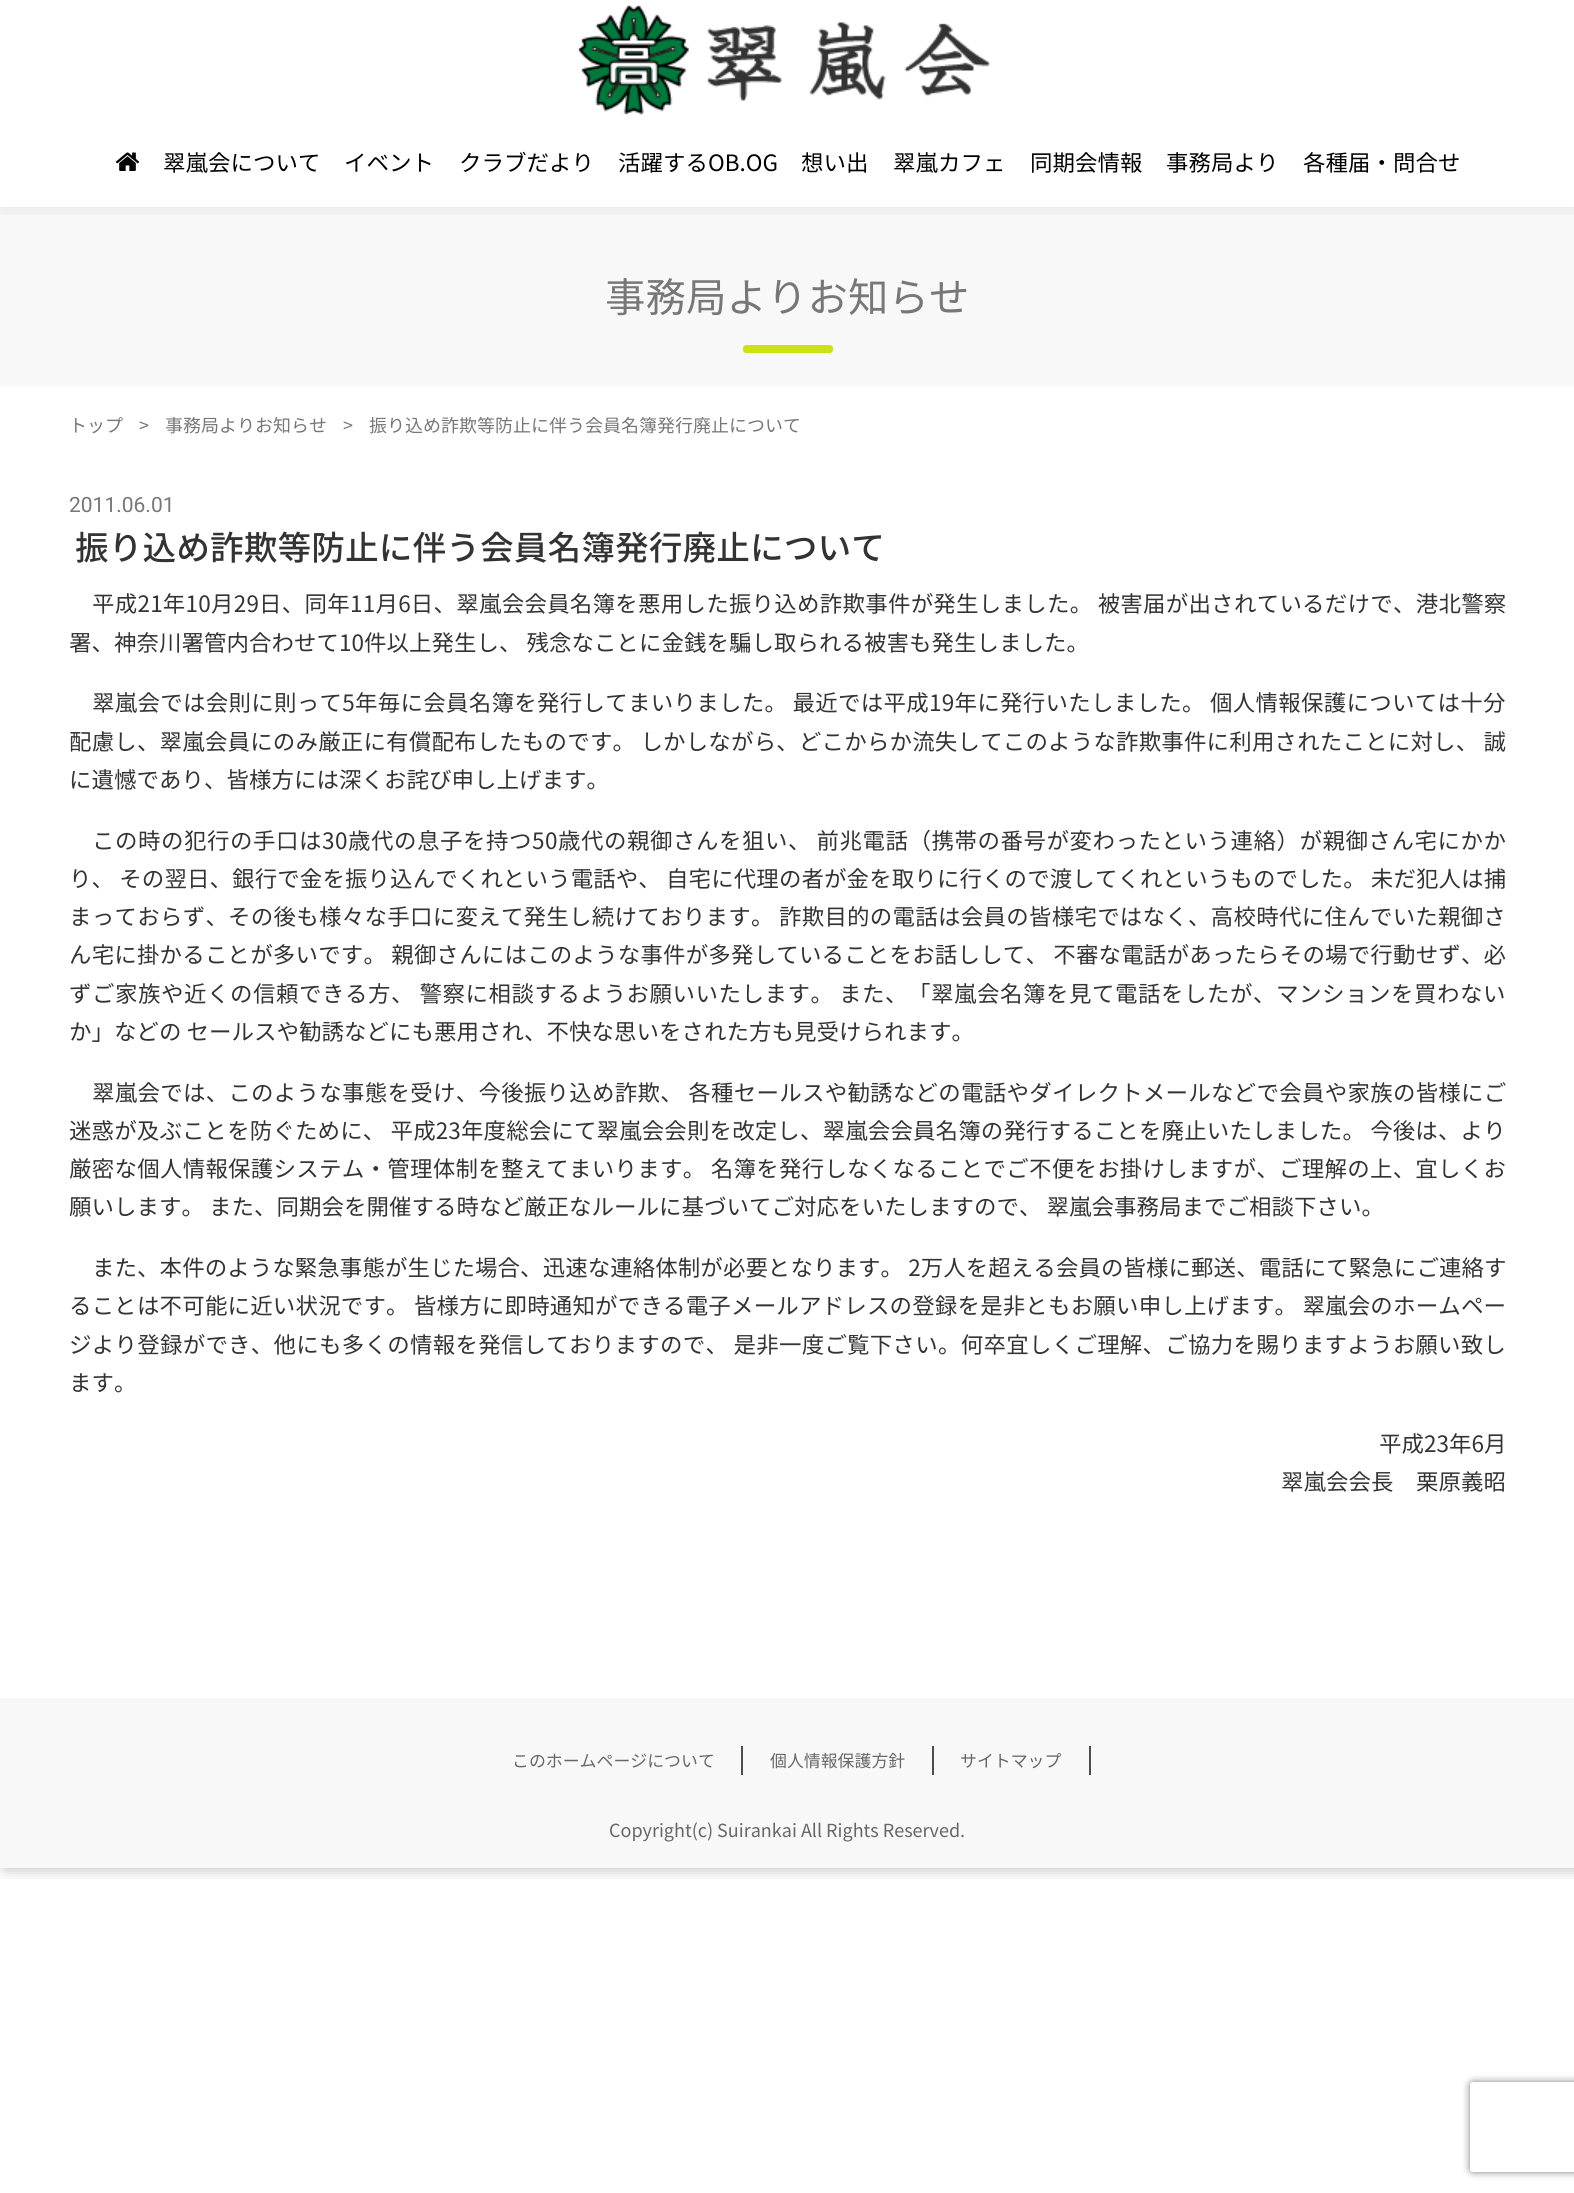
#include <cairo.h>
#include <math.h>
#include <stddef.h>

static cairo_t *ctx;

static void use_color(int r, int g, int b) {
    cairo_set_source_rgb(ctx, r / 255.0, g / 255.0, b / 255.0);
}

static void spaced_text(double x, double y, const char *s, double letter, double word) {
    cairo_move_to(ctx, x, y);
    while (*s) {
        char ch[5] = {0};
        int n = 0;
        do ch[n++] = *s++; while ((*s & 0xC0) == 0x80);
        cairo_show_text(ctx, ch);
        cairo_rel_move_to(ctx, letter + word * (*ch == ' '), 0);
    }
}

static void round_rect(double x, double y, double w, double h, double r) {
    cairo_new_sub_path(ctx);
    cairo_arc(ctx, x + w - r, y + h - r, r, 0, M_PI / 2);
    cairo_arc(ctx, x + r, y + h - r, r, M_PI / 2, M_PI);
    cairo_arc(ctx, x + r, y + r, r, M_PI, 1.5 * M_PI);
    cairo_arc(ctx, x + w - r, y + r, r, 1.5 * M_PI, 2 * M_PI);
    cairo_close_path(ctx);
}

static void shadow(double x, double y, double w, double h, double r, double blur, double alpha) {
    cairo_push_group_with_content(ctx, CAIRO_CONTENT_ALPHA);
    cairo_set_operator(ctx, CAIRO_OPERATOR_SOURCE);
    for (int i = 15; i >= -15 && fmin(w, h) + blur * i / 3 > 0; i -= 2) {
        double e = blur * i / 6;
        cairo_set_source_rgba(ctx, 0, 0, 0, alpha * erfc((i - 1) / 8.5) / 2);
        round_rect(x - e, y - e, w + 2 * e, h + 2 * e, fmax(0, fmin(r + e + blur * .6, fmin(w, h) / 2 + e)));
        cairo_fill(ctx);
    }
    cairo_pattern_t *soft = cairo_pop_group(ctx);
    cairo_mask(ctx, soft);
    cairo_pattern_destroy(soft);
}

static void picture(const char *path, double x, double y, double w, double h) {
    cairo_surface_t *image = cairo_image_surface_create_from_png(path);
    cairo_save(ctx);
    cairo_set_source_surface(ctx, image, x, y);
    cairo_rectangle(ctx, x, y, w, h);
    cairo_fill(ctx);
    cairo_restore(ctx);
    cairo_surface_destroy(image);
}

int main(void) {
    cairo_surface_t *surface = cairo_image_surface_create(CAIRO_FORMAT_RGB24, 1574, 2193);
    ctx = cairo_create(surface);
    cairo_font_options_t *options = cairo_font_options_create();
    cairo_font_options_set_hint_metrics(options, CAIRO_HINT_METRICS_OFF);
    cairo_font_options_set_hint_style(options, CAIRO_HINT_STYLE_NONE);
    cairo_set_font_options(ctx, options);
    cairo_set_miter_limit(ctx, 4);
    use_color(255, 255, 255);
    cairo_paint(ctx);
    cairo_save(ctx);
    cairo_rectangle(ctx, 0, 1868, 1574, 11);
    cairo_clip(ctx);
    use_color(0, 0, 0);
    shadow(5, 0, 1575, 1868, 0, 7.5, 0.3);
    cairo_restore(ctx);
    use_color(248, 248, 248);
    cairo_rectangle(ctx, 0, 207, 1574, 179);
    cairo_fill(ctx);
    cairo_save(ctx);
    cairo_rectangle(ctx, 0, 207, 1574, 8);
    cairo_clip(ctx);
    use_color(0, 0, 0);
    shadow(0, 0, 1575, 207, 0, 9, 0.1);
    cairo_restore(ctx);
    picture("img1.png", 578, 4, 413, 111);
    picture("img2.png", 115, 152, 25, 19);
    cairo_select_font_face(ctx, "Noto Sans JP", CAIRO_FONT_SLANT_NORMAL, CAIRO_FONT_WEIGHT_NORMAL);
    cairo_set_font_size(ctx, 22.5);
    use_color(0, 0, 0);
    cairo_move_to(ctx, 163, 171);
    cairo_show_text(ctx, "翠嵐会について");
    cairo_move_to(ctx, 344, 171);
    cairo_show_text(ctx, "イベント");
    cairo_move_to(ctx, 459, 171);
    cairo_show_text(ctx, "クラブだより");
    cairo_move_to(ctx, 618, 171);
    cairo_show_text(ctx, "活躍するOB.OG");
    cairo_move_to(ctx, 801, 171);
    cairo_show_text(ctx, "想い出");
    cairo_move_to(ctx, 893, 171);
    cairo_show_text(ctx, "翠嵐カフェ");
    cairo_move_to(ctx, 1030, 171);
    cairo_show_text(ctx, "同期会情報");
    cairo_move_to(ctx, 1166, 171);
    cairo_show_text(ctx, "事務局より");
    cairo_move_to(ctx, 1303, 171);
    cairo_show_text(ctx, "各種届・問合せ");
    cairo_set_font_size(ctx, 40.5);
    use_color(119, 119, 119);
    cairo_move_to(ctx, 605, 312);
    cairo_show_text(ctx, "事務局よりお知らせ");
    use_color(204, 226, 19);
    round_rect(743, 345, 90, 8, 3);
    cairo_fill(ctx);
    cairo_set_font_size(ctx, 18);
    use_color(119, 119, 119);
    cairo_move_to(ctx, 69, 432);
    cairo_show_text(ctx, "トップ");
    cairo_move_to(ctx, 139, 432);
    cairo_show_text(ctx, ">");
    cairo_move_to(ctx, 165, 432);
    cairo_show_text(ctx, "事務局よりお知らせ");
    cairo_move_to(ctx, 343, 432);
    cairo_show_text(ctx, ">");
    cairo_move_to(ctx, 369, 432);
    cairo_show_text(ctx, "振り込め詐欺等防止に伴う会員名簿発行廃止について");
    cairo_select_font_face(ctx, "Roboto", CAIRO_FONT_SLANT_NORMAL, CAIRO_FONT_WEIGHT_NORMAL);
    cairo_set_font_size(ctx, 21);
    cairo_move_to(ctx, 69, 512);
    cairo_show_text(ctx, "2011.06.01");
    cairo_select_font_face(ctx, "Noto Sans JP Medium", CAIRO_FONT_SLANT_NORMAL, CAIRO_FONT_WEIGHT_NORMAL);
    cairo_set_font_size(ctx, 33.75);
    use_color(51, 51, 51);
    cairo_move_to(ctx, 75, 560);
    cairo_show_text(ctx, "振り込め詐欺等防止に伴う会員名簿発行廃止について");
    cairo_select_font_face(ctx, "Noto Sans JP", CAIRO_FONT_SLANT_NORMAL, CAIRO_FONT_WEIGHT_NORMAL);
    cairo_set_font_size(ctx, 22.5);
    spaced_text(92, 612, "平成21年10月29日、同年11月6日、翠嵐会会員名簿を悪用した振り込め詐欺事件が発生しました。 被害届が出されているだけで、港北警察", 0.22, 0);
    cairo_move_to(ctx, 69, 651);
    cairo_show_text(ctx, "署、神奈川署管内合わせて10件以上発生し、 残念なことに金銭を騙し取られる被害も発生しました。");
    spaced_text(92, 711, "翠嵐会では会則に則って5年毎に会員名簿を発行してまいりました。 最近では平成19年に発行いたしました。 個人情報保護については十分", 0.25, 0);
    spaced_text(69, 750, "配慮し、翠嵐会員にのみ厳正に有償配布したものです。 しかしながら、どこからか流失してこのような詐欺事件に利用されたことに対し、 誠", 0.15, 0);
    cairo_move_to(ctx, 69, 788);
    cairo_show_text(ctx, "に遺憾であり、皆様方には深くお詫び申し上げます。");
    spaced_text(92, 849, "この時の犯行の手口は30歳代の息子を持つ50歳代の親御さんを狙い、 前兆電話（携帯の番号が変わったという連絡）が親御さん宅にかか", 0.5, 0);
    spaced_text(69, 887, "り、 その翌日、銀行で金を振り込んでくれという電話や、 自宅に代理の者が金を取りに行くので渡してくれというものでした。 未だ犯人は捕", 0.07, 0);
    spaced_text(69, 925, "まっておらず、その後も様々な手口に変えて発生し続けております。 詐欺目的の電話は会員の皆様宅ではなく、高校時代に住んでいた親御さ", 0.23, 0);
    spaced_text(69, 963, "ん宅に掛かることが多いです。 親御さんにはこのような事件が多発していることをお話しして、 不審な電話があったらその場で行動せず、必", 0.15, 0);
    spaced_text(69, 1002, "ずご家族や近くの信頼できる方、 警察に相談するようお願いいたします。 また、「翠嵐会名簿を見て電話をしたが、マンションを買わない", 0.5, 0);
    cairo_move_to(ctx, 69, 1040);
    cairo_show_text(ctx, "か」などの セールスや勧誘などにも悪用され、不快な思いをされた方も見受けられます。");
    spaced_text(92, 1101, "翠嵐会では、このような事態を受け、今後振り込め詐欺、 各種セールスや勧誘などの電話やダイレクトメールなどで会員や家族の皆様にご", 0.23, 0);
    spaced_text(69, 1139, "迷惑が及ぶことを防ぐために、 平成23年度総会にて翠嵐会会則を改定し、翠嵐会会員名簿の発行することを廃止いたしました。 今後は、より", 0.1, 0);
    spaced_text(69, 1177, "厳密な個人情報保護システム・管理体制を整えてまいります。 名簿を発行しなくなることでご不便をお掛けしますが、ご理解の上、宜しくお", 0.23, 0);
    cairo_move_to(ctx, 69, 1215);
    cairo_show_text(ctx, "願いします。 また、同期会を開催する時など厳正なルールに基づいてご対応をいたしますので、 翠嵐会事務局までご相談下さい。");
    spaced_text(92, 1276, "また、本件のような緊急事態が生じた場合、迅速な連絡体制が必要となります。 2万人を超える会員の皆様に郵送、電話にて緊急にご連絡す", 0.03, 0);
    spaced_text(69, 1314, "ることは不可能に近い状況です。 皆様方に即時通知ができる電子メールアドレスの登録を是非ともお願い申し上げます。 翠嵐会のホームペー", 0.15, 0);
    spaced_text(69, 1353, "ジより登録ができ、他にも多くの情報を発信しておりますので、 是非一度ご覧下さい。何卒宜しくご理解、ご協力を賜りますようお願い致し", 0.23, 0);
    cairo_move_to(ctx, 69, 1391);
    cairo_show_text(ctx, "ます。");
    cairo_move_to(ctx, 1379, 1452);
    cairo_show_text(ctx, "平成23年6月");
    cairo_move_to(ctx, 1281, 1490);
    cairo_show_text(ctx, "翠嵐会会長　栗原義昭");
    use_color(248, 248, 248);
    cairo_rectangle(ctx, 0, 1698, 1574, 170);
    cairo_fill(ctx);
    use_color(77, 77, 77);
    cairo_rectangle(ctx, 741, 1746, 2, 29);
    cairo_fill(ctx);
    cairo_set_font_size(ctx, 16.9);
    use_color(102, 102, 102);
    cairo_move_to(ctx, 512, 1767);
    cairo_show_text(ctx, "このホームページについて");
    use_color(77, 77, 77);
    cairo_rectangle(ctx, 932, 1746, 2, 29);
    cairo_fill(ctx);
    use_color(102, 102, 102);
    cairo_move_to(ctx, 770, 1767);
    cairo_show_text(ctx, "個人情報保護方針");
    use_color(77, 77, 77);
    cairo_rectangle(ctx, 1089, 1746, 2, 29);
    cairo_fill(ctx);
    use_color(102, 102, 102);
    cairo_move_to(ctx, 960, 1767);
    cairo_show_text(ctx, "サイトマップ");
    cairo_set_font_size(ctx, 18);
    cairo_move_to(ctx, 609, 1837);
    cairo_show_text(ctx, "Copyright(c) Suirankai All Rights Reserved.");
    cairo_save(ctx);
    cairo_set_fill_rule(ctx, CAIRO_FILL_RULE_EVEN_ODD);
    cairo_new_path(ctx);
    cairo_move_to(ctx, 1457, 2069);
    cairo_line_to(ctx, 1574, 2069);
    cairo_line_to(ctx, 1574, 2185);
    cairo_line_to(ctx, 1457, 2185);
    cairo_close_path(ctx);
    cairo_move_to(ctx, 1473, 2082);
    cairo_line_to(ctx, 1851, 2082);
    cairo_curve_to(ctx, 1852.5, 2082, 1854, 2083.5, 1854, 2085);
    cairo_line_to(ctx, 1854, 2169);
    cairo_curve_to(ctx, 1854, 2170.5, 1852.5, 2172, 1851, 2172);
    cairo_line_to(ctx, 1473, 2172);
    cairo_curve_to(ctx, 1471.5, 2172, 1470, 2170.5, 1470, 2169);
    cairo_line_to(ctx, 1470, 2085);
    cairo_curve_to(ctx, 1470, 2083.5, 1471.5, 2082, 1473, 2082);
    cairo_close_path(ctx);
    cairo_clip(ctx);
    use_color(128, 128, 128);
    shadow(1470, 2082, 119, 90, 3, 4, 1);
    cairo_restore(ctx);
    cairo_surface_write_to_png(surface, "result.png");
    cairo_font_options_destroy(options);
    cairo_destroy(ctx);
    cairo_surface_destroy(surface);
    return 0;
}
